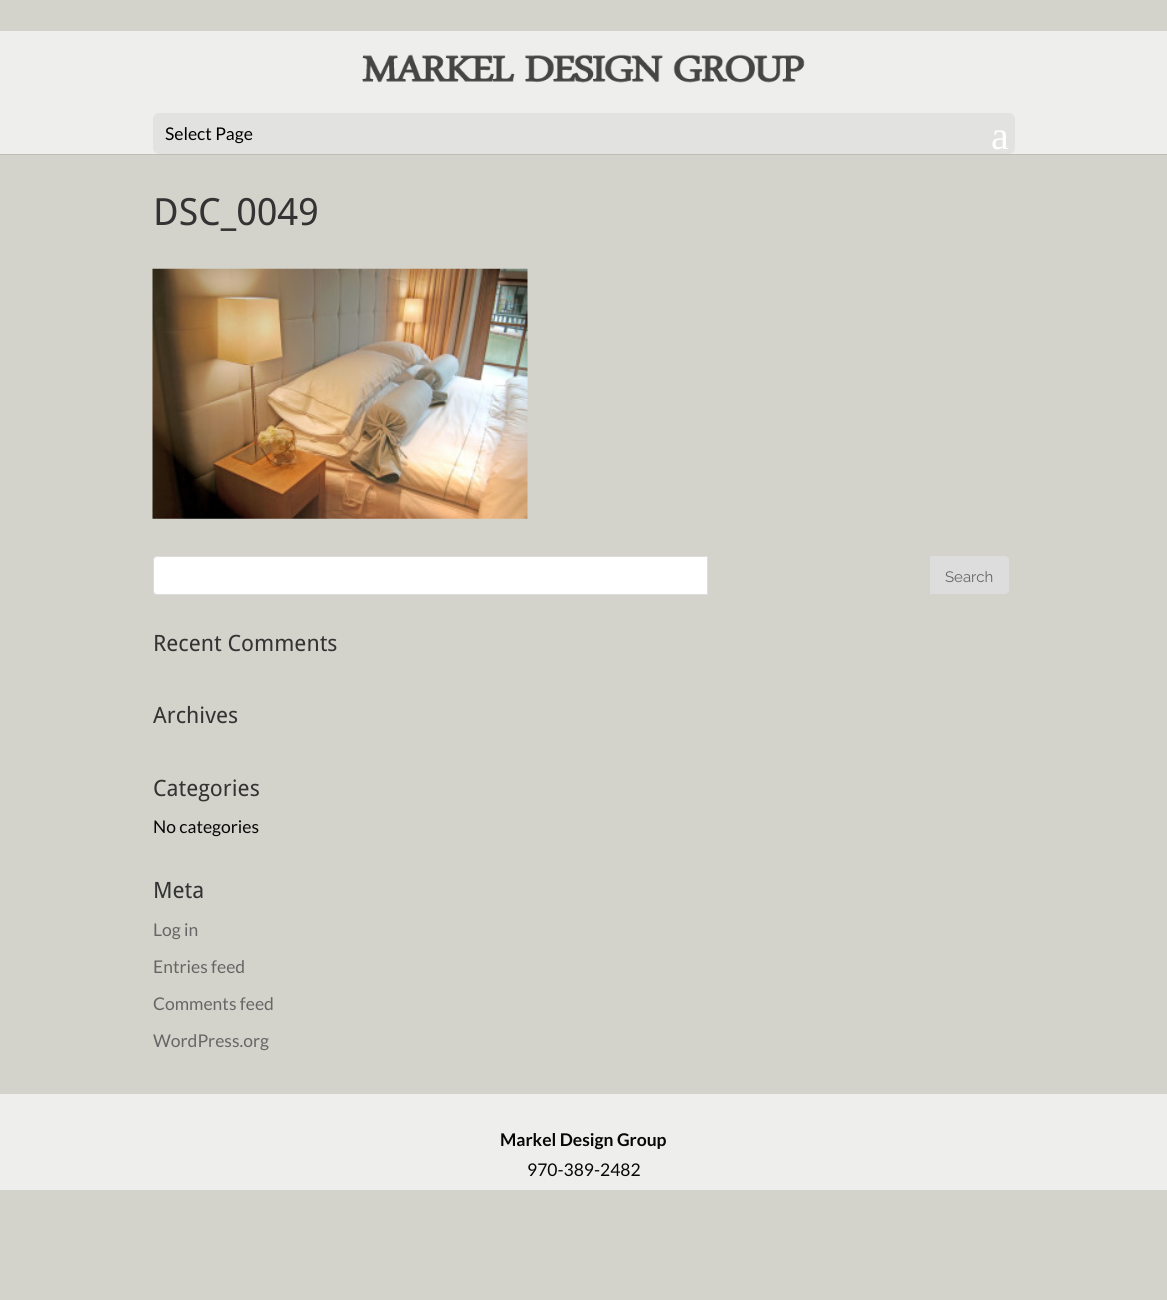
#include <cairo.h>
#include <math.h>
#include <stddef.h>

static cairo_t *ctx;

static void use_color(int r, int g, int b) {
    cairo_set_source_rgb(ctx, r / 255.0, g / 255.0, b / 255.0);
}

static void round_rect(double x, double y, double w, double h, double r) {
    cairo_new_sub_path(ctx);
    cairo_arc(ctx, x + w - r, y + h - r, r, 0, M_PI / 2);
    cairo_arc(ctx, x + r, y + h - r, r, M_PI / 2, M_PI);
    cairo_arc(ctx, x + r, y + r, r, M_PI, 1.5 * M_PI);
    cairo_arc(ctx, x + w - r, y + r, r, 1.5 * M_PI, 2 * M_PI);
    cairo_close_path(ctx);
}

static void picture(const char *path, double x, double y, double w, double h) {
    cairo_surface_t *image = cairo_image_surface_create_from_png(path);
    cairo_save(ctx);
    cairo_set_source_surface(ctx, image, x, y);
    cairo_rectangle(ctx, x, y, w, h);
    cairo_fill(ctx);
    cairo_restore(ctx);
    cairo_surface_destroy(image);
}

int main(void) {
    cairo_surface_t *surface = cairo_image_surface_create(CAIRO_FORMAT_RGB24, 1167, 1300);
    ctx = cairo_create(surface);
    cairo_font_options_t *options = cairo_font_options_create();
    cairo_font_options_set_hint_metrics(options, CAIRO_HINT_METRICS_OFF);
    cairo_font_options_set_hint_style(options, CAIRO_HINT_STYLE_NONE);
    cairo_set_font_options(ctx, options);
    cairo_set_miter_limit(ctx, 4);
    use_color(211, 211, 203);
    cairo_paint(ctx);
    use_color(190, 190, 183);
    cairo_new_path(ctx);
    cairo_move_to(ctx, 0, 154);
    cairo_line_to(ctx, 0, 155);
    cairo_line_to(ctx, 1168, 155);
    cairo_line_to(ctx, 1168, 33);
    cairo_line_to(ctx, 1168, 154);
    cairo_close_path(ctx);
    cairo_fill(ctx);
    use_color(238, 238, 236);
    cairo_rectangle(ctx, 0, 31, 1167, 123);
    cairo_fill(ctx);
    picture("img1.png", 362, 54, 443, 29);
    use_color(226, 226, 224);
    round_rect(153, 113, 862, 41, 6);
    cairo_fill(ctx);
    cairo_select_font_face(ctx, "Lato", CAIRO_FONT_SLANT_NORMAL, CAIRO_FONT_WEIGHT_NORMAL);
    cairo_set_font_size(ctx, 17.5);
    use_color(0, 0, 0);
    cairo_move_to(ctx, 165, 140);
    cairo_show_text(ctx, "Select Page");
    cairo_select_font_face(ctx, "Liberation Serif", CAIRO_FONT_SLANT_NORMAL, CAIRO_FONT_WEIGHT_NORMAL);
    cairo_set_font_size(ctx, 40);
    use_color(255, 255, 255);
    cairo_move_to(ctx, 991, 149);
    cairo_show_text(ctx, "a");
    cairo_select_font_face(ctx, "Droid Sans", CAIRO_FONT_SLANT_NORMAL, CAIRO_FONT_WEIGHT_NORMAL);
    cairo_set_font_size(ctx, 37.5);
    use_color(51, 51, 51);
    cairo_move_to(ctx, 153, 225);
    cairo_show_text(ctx, "DSC_0049");
    picture("img2.png", 152, 268, 376, 251);
    use_color(255, 255, 255);
    cairo_new_path(ctx);
    cairo_move_to(ctx, 157, 556.5);
    cairo_line_to(ctx, 707.5, 556.5);
    cairo_line_to(ctx, 707.5, 594.5);
    cairo_line_to(ctx, 157, 594.5);
    cairo_curve_to(ctx, 155, 594.5, 153.5, 593, 153.5, 591);
    cairo_line_to(ctx, 153.5, 560);
    cairo_curve_to(ctx, 153.5, 558, 155, 556.5, 157, 556.5);
    cairo_close_path(ctx);
    cairo_fill_preserve(ctx);
    use_color(221, 221, 221);
    cairo_set_line_width(ctx, 1);
    cairo_stroke(ctx);
    cairo_new_path(ctx);
    cairo_move_to(ctx, 930, 556);
    cairo_line_to(ctx, 1005, 556);
    cairo_curve_to(ctx, 1007, 556, 1009, 558, 1009, 560);
    cairo_line_to(ctx, 1009, 590);
    cairo_curve_to(ctx, 1009, 592, 1007, 594, 1005, 594);
    cairo_line_to(ctx, 930, 594);
    cairo_close_path(ctx);
    cairo_fill(ctx);
    cairo_select_font_face(ctx, "Raleway", CAIRO_FONT_SLANT_NORMAL, CAIRO_FONT_WEIGHT_NORMAL);
    cairo_set_font_size(ctx, 15);
    use_color(102, 102, 102);
    cairo_move_to(ctx, 945, 582);
    cairo_show_text(ctx, "Search");
    cairo_select_font_face(ctx, "Droid Sans", CAIRO_FONT_SLANT_NORMAL, CAIRO_FONT_WEIGHT_NORMAL);
    cairo_set_font_size(ctx, 22.5);
    use_color(51, 51, 51);
    cairo_move_to(ctx, 153, 651);
    cairo_show_text(ctx, "Recent Comments");
    cairo_move_to(ctx, 153, 723);
    cairo_show_text(ctx, "Archives");
    cairo_move_to(ctx, 153, 796);
    cairo_show_text(ctx, "Categories");
    cairo_select_font_face(ctx, "Lato", CAIRO_FONT_SLANT_NORMAL, CAIRO_FONT_WEIGHT_NORMAL);
    cairo_set_font_size(ctx, 17.5);
    use_color(7, 7, 7);
    cairo_move_to(ctx, 153, 833);
    cairo_show_text(ctx, "No categories");
    cairo_select_font_face(ctx, "Droid Sans", CAIRO_FONT_SLANT_NORMAL, CAIRO_FONT_WEIGHT_NORMAL);
    cairo_set_font_size(ctx, 22.5);
    use_color(51, 51, 51);
    cairo_move_to(ctx, 153, 898);
    cairo_show_text(ctx, "Meta");
    cairo_select_font_face(ctx, "Lato", CAIRO_FONT_SLANT_NORMAL, CAIRO_FONT_WEIGHT_NORMAL);
    cairo_set_font_size(ctx, 17.5);
    use_color(102, 102, 102);
    cairo_move_to(ctx, 153, 936);
    cairo_show_text(ctx, "Log in");
    cairo_move_to(ctx, 153, 973);
    cairo_show_text(ctx, "Entries feed");
    cairo_move_to(ctx, 153, 1010);
    cairo_show_text(ctx, "Comments feed");
    cairo_move_to(ctx, 153, 1047);
    cairo_show_text(ctx, "WordPress.org");
    use_color(238, 238, 236);
    cairo_rectangle(ctx, 0, 1094, 1167, 96);
    cairo_fill(ctx);
    cairo_select_font_face(ctx, "Lato", CAIRO_FONT_SLANT_NORMAL, CAIRO_FONT_WEIGHT_BOLD);
    use_color(7, 7, 7);
    cairo_move_to(ctx, 500, 1146);
    cairo_show_text(ctx, "Markel Design Group");
    cairo_select_font_face(ctx, "Lato", CAIRO_FONT_SLANT_NORMAL, CAIRO_FONT_WEIGHT_NORMAL);
    cairo_move_to(ctx, 527, 1176);
    cairo_show_text(ctx, "970-389-2482");
    cairo_surface_write_to_png(surface, "result.png");
    cairo_font_options_destroy(options);
    cairo_destroy(ctx);
    cairo_surface_destroy(surface);
    return 0;
}
